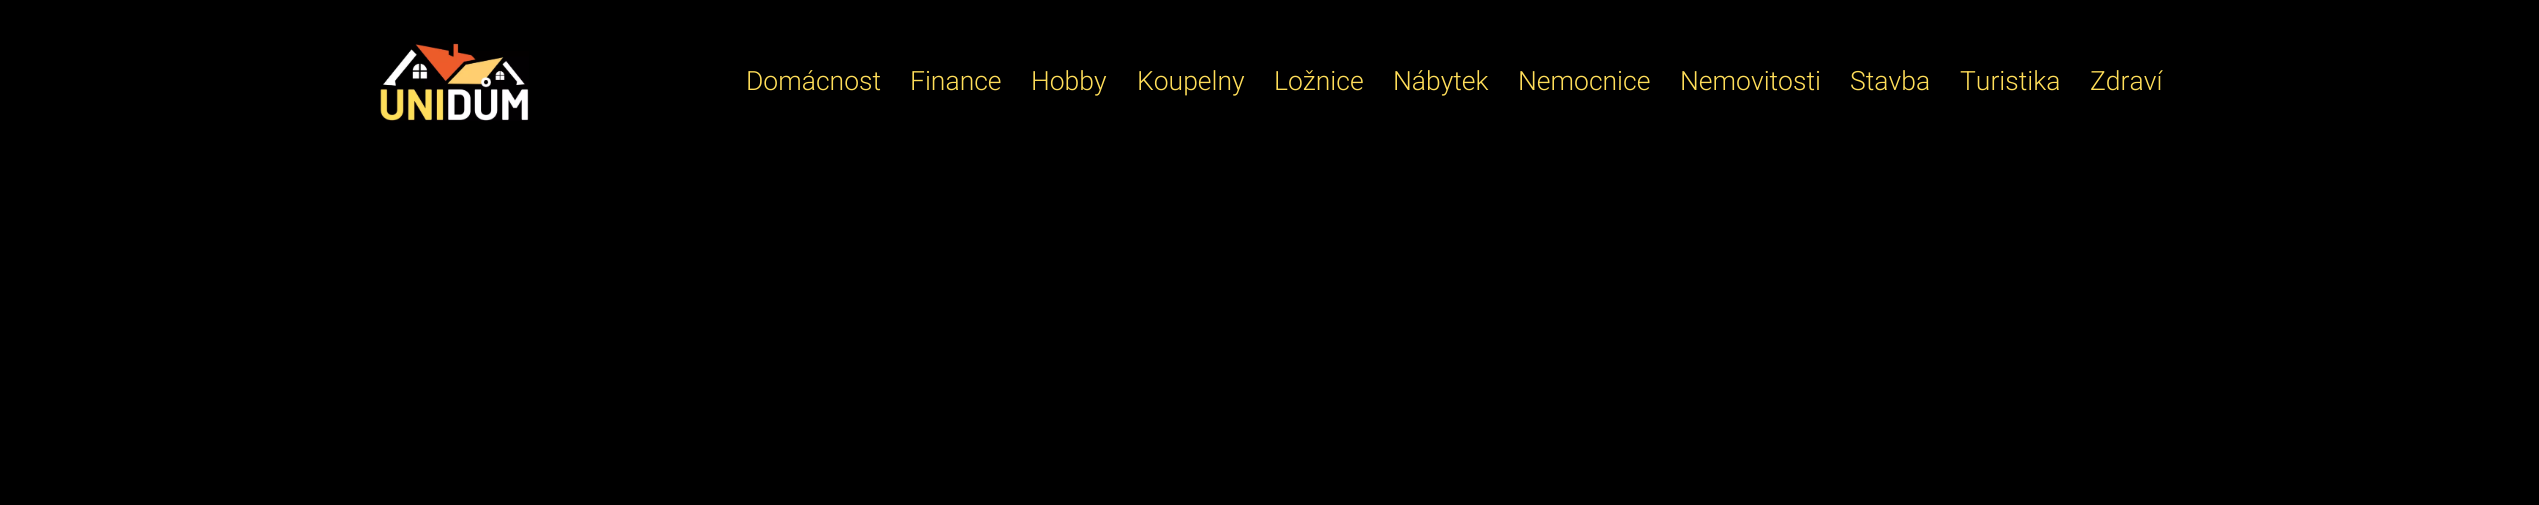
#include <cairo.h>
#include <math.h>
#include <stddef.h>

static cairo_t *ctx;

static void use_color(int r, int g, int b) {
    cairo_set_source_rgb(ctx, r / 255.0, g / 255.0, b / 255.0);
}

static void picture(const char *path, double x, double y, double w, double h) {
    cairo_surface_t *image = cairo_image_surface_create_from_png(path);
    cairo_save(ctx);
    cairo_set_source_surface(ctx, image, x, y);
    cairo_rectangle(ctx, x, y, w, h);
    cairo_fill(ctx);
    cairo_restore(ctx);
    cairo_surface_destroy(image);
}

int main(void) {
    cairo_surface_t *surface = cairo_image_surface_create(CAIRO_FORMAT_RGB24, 2539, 505);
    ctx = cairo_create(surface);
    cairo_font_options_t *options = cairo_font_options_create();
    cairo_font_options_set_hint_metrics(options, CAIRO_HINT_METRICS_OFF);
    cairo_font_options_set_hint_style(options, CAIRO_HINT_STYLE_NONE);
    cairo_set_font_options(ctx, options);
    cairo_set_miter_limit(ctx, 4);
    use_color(0, 0, 0);
    cairo_paint(ctx);
    picture("img1.png", 380, 43, 149, 78);
    cairo_select_font_face(ctx, "Roboto Light", CAIRO_FONT_SLANT_NORMAL, CAIRO_FONT_WEIGHT_NORMAL);
    cairo_set_font_size(ctx, 26.5);
    use_color(255, 222, 89);
    cairo_move_to(ctx, 746, 90);
    cairo_show_text(ctx, "Domácnost");
    cairo_move_to(ctx, 910, 90);
    cairo_show_text(ctx, "Finance");
    cairo_move_to(ctx, 1031, 90);
    cairo_show_text(ctx, "Hobby");
    cairo_move_to(ctx, 1137, 90);
    cairo_show_text(ctx, "Koupelny");
    cairo_move_to(ctx, 1274, 90);
    cairo_show_text(ctx, "Ložnice");
    cairo_move_to(ctx, 1393, 90);
    cairo_show_text(ctx, "Nábytek");
    cairo_move_to(ctx, 1518, 90);
    cairo_show_text(ctx, "Nemocnice");
    cairo_move_to(ctx, 1680, 90);
    cairo_show_text(ctx, "Nemovitosti");
    cairo_move_to(ctx, 1850, 90);
    cairo_show_text(ctx, "Stavba");
    cairo_move_to(ctx, 1960, 90);
    cairo_show_text(ctx, "Turistika");
    cairo_move_to(ctx, 2090, 90);
    cairo_show_text(ctx, "Zdraví");
    cairo_surface_write_to_png(surface, "result.png");
    cairo_font_options_destroy(options);
    cairo_destroy(ctx);
    cairo_surface_destroy(surface);
    return 0;
}
